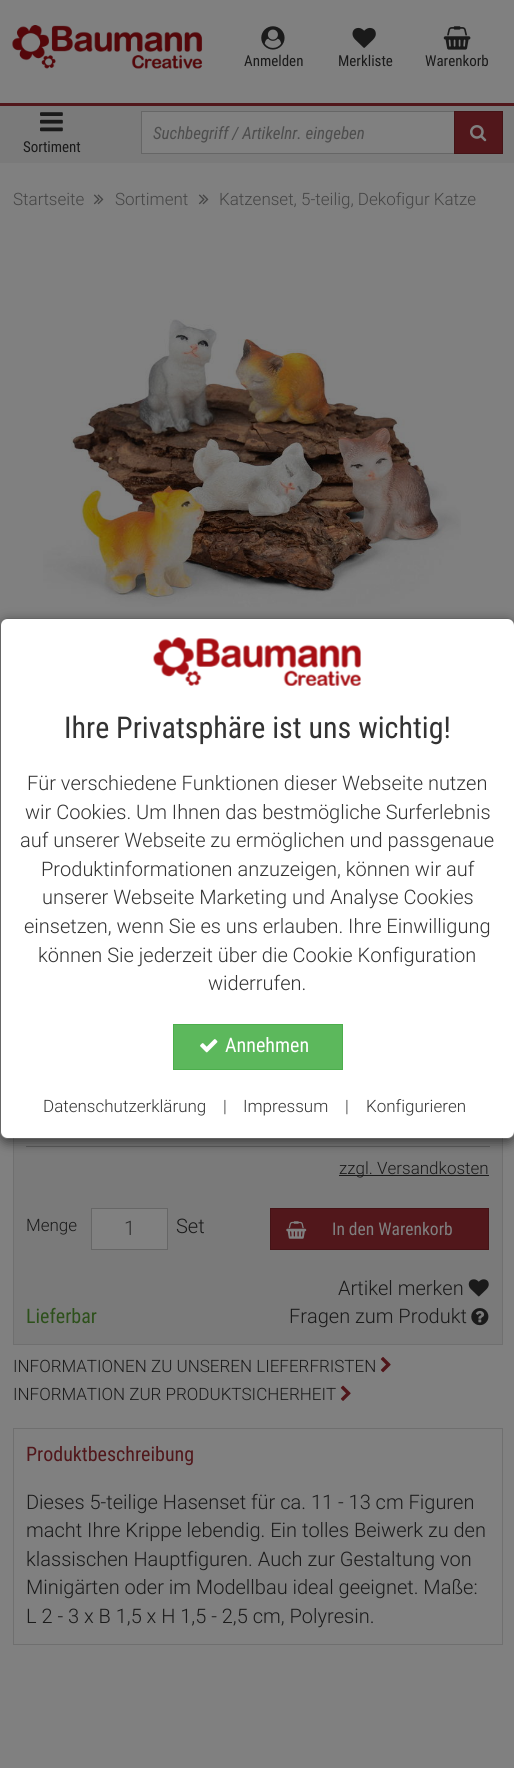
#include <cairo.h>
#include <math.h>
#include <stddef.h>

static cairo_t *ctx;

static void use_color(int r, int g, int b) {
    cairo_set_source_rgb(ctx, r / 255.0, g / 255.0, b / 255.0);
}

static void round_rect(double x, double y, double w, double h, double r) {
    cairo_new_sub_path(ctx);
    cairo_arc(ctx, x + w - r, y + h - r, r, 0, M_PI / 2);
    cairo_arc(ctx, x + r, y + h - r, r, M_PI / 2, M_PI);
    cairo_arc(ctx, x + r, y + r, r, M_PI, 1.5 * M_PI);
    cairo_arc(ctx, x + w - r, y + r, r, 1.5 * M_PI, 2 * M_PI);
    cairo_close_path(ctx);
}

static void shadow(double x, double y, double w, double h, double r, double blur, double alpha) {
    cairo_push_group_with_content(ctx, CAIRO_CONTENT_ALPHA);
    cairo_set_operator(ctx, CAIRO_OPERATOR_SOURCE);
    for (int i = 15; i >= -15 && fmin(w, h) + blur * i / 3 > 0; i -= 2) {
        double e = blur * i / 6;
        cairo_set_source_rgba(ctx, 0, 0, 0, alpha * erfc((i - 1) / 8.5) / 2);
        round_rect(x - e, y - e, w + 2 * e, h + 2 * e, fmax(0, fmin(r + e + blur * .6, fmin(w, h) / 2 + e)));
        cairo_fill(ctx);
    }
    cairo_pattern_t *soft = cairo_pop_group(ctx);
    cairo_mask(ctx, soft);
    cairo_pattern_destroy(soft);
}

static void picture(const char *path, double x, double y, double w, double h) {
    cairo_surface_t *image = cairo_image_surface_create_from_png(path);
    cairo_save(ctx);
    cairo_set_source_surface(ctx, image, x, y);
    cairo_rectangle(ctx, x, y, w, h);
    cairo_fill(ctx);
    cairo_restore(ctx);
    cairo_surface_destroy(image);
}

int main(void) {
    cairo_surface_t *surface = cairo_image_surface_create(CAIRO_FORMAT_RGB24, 514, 1768);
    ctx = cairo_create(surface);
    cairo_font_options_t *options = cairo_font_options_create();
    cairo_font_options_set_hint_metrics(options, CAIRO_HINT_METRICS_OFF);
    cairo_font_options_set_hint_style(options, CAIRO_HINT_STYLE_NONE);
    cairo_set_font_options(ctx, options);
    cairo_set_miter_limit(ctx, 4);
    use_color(128, 128, 128);
    cairo_paint(ctx);
    picture("img1.png", 12, 25, 191, 44);
    picture("img2.png", 261, 26, 24, 24);
    cairo_select_font_face(ctx, "Roboto Condensed", CAIRO_FONT_SLANT_NORMAL, CAIRO_FONT_WEIGHT_NORMAL);
    cairo_set_font_size(ctx, 15);
    use_color(26, 26, 26);
    cairo_move_to(ctx, 244, 66);
    cairo_show_text(ctx, "Anmelden");
    picture("img3.png", 352, 27, 24, 21);
    cairo_move_to(ctx, 338, 66);
    cairo_show_text(ctx, "Merkliste");
    picture("img4.png", 443, 26, 28, 24);
    cairo_move_to(ctx, 425, 66);
    cairo_show_text(ctx, "Warenkorb");
    use_color(122, 122, 122);
    cairo_rectangle(ctx, 0, 106, 514, 57);
    cairo_fill(ctx);
    use_color(81, 23, 27);
    cairo_rectangle(ctx, 0, 103, 514, 3);
    cairo_fill(ctx);
    use_color(128, 128, 128);
    cairo_rectangle(ctx, 141.5, 111.5, 313, 42);
    cairo_fill_preserve(ctx);
    use_color(102, 102, 102);
    cairo_set_line_width(ctx, 1);
    cairo_stroke(ctx);
    cairo_select_font_face(ctx, "Roboto Condensed", CAIRO_FONT_SLANT_ITALIC, CAIRO_FONT_WEIGHT_NORMAL);
    cairo_set_font_size(ctx, 17);
    use_color(77, 77, 77);
    cairo_move_to(ctx, 153, 139);
    cairo_show_text(ctx, "Suchbegriff / Artikelnr. eingeben");
    use_color(81, 23, 27);
    cairo_rectangle(ctx, 454.5, 111.5, 48, 42);
    cairo_fill_preserve(ctx);
    use_color(68, 19, 22);
    cairo_stroke(ctx);
    picture("img5.png", 470, 125, 17, 17);
    picture("img6.png", 40, 112, 23, 20);
    cairo_select_font_face(ctx, "Roboto Condensed", CAIRO_FONT_SLANT_NORMAL, CAIRO_FONT_WEIGHT_NORMAL);
    cairo_set_font_size(ctx, 15);
    use_color(26, 26, 26);
    cairo_move_to(ctx, 23, 152);
    cairo_show_text(ctx, "Sortiment");
    cairo_select_font_face(ctx, "Roboto Light", CAIRO_FONT_SLANT_NORMAL, CAIRO_FONT_WEIGHT_NORMAL);
    cairo_set_font_size(ctx, 17);
    use_color(68, 68, 68);
    cairo_move_to(ctx, 13, 205);
    cairo_show_text(ctx, "Startseite");
    picture("img7.png", 93, 194, 11, 11);
    cairo_move_to(ctx, 115, 205);
    cairo_show_text(ctx, "Sortiment");
    picture("img7.png", 198, 194, 11, 11);
    cairo_move_to(ctx, 219, 205);
    cairo_show_text(ctx, "Katzenset, 5-teilig, Dekofigur Katze");
    picture("img10.png", 43, 319, 418, 288);
    use_color(122, 122, 122);
    cairo_rectangle(ctx, 14, 1138, 488, 206);
    cairo_fill(ctx);
    cairo_rectangle(ctx, 13.5, 991.5, 489, 353);
    use_color(111, 111, 111);
    cairo_stroke(ctx);
    use_color(94, 94, 94);
    cairo_rectangle(ctx, 26, 1146, 464, 1);
    cairo_fill(ctx);
    cairo_save(ctx);
    cairo_set_fill_rule(ctx, CAIRO_FILL_RULE_EVEN_ODD);
    cairo_new_path(ctx);
    cairo_move_to(ctx, 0, 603);
    cairo_line_to(ctx, 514, 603);
    cairo_line_to(ctx, 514, 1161);
    cairo_line_to(ctx, 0, 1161);
    cairo_close_path(ctx);
    cairo_move_to(ctx, 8, 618);
    cairo_line_to(ctx, 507, 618);
    cairo_curve_to(ctx, 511.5, 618, 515, 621.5, 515, 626);
    cairo_line_to(ctx, 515, 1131);
    cairo_curve_to(ctx, 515, 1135.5, 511.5, 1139, 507, 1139);
    cairo_line_to(ctx, 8, 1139);
    cairo_curve_to(ctx, 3.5, 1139, 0, 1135.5, 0, 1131);
    cairo_line_to(ctx, 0, 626);
    cairo_curve_to(ctx, 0, 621.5, 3.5, 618, 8, 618);
    cairo_close_path(ctx);
    cairo_clip(ctx);
    use_color(0, 0, 0);
    shadow(0, 621, 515, 522, 8, 5.5, 0.5);
    cairo_restore(ctx);
    use_color(255, 255, 255);
    round_rect(1, 619, 513, 519, 6);
    cairo_fill(ctx);
    round_rect(0.5, 618.5, 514, 520, 7.5);
    cairo_set_source_rgba(ctx, 0, 0, 0, 0.2);
    cairo_stroke(ctx);
    picture("img8.png", 153, 637, 209, 49);
    cairo_select_font_face(ctx, "Roboto Condensed", CAIRO_FONT_SLANT_NORMAL, CAIRO_FONT_WEIGHT_NORMAL);
    cairo_set_font_size(ctx, 30);
    use_color(51, 51, 51);
    cairo_move_to(ctx, 64, 738);
    cairo_show_text(ctx, "Ihre Privatsphäre ist uns wichtig!");
    cairo_select_font_face(ctx, "Roboto Light", CAIRO_FONT_SLANT_NORMAL, CAIRO_FONT_WEIGHT_NORMAL);
    cairo_set_font_size(ctx, 20);
    cairo_move_to(ctx, 27, 790);
    cairo_show_text(ctx, "Für verschiedene Funktionen dieser Webseite nutzen");
    cairo_move_to(ctx, 25, 819);
    cairo_show_text(ctx, "wir Cookies. Um Ihnen das bestmögliche Surferlebnis");
    cairo_move_to(ctx, 20, 847);
    cairo_show_text(ctx, "auf unserer Webseite zu ermöglichen und passgenaue");
    cairo_move_to(ctx, 41, 876);
    cairo_show_text(ctx, "Produktinformationen anzuzeigen, können wir auf");
    cairo_move_to(ctx, 42, 904);
    cairo_show_text(ctx, "unserer Webseite Marketing und Analyse Cookies");
    cairo_move_to(ctx, 24, 933);
    cairo_show_text(ctx, "einsetzen, wenn Sie es uns erlauben. Ihre Einwilligung");
    cairo_move_to(ctx, 38, 962);
    cairo_show_text(ctx, "können Sie jederzeit über die Cookie Konfiguration");
    cairo_move_to(ctx, 208, 990);
    cairo_show_text(ctx, "widerrufen.");
    use_color(92, 184, 92);
    cairo_rectangle(ctx, 173.5, 1024.5, 169, 45);
    cairo_fill_preserve(ctx);
    use_color(76, 174, 76);
    cairo_stroke(ctx);
    picture("img9.png", 200, 1039, 18, 14);
    cairo_select_font_face(ctx, "Roboto Condensed", CAIRO_FONT_SLANT_NORMAL, CAIRO_FONT_WEIGHT_NORMAL);
    use_color(255, 255, 255);
    cairo_move_to(ctx, 225, 1052);
    cairo_show_text(ctx, "Annehmen");
    cairo_select_font_face(ctx, "Roboto Light", CAIRO_FONT_SLANT_NORMAL, CAIRO_FONT_WEIGHT_NORMAL);
    cairo_set_font_size(ctx, 17);
    use_color(51, 51, 51);
    cairo_move_to(ctx, 43, 1112);
    cairo_show_text(ctx, "Datenschutzerklärung");
    cairo_move_to(ctx, 223, 1112);
    cairo_show_text(ctx, "|");
    cairo_move_to(ctx, 243, 1112);
    cairo_show_text(ctx, "Impressum");
    cairo_move_to(ctx, 345, 1112);
    cairo_show_text(ctx, "|");
    cairo_move_to(ctx, 366, 1112);
    cairo_show_text(ctx, "Konfigurieren");
    use_color(26, 26, 26);
    cairo_rectangle(ctx, 339, 1175, 150, 1);
    cairo_fill(ctx);
    cairo_move_to(ctx, 339, 1174);
    cairo_show_text(ctx, "zzgl. Versandkosten");
    cairo_move_to(ctx, 26, 1231);
    cairo_show_text(ctx, "Menge");
    use_color(128, 128, 128);
    cairo_rectangle(ctx, 91.5, 1208.5, 76, 41);
    cairo_fill_preserve(ctx);
    use_color(102, 102, 102);
    cairo_stroke(ctx);
    cairo_set_font_size(ctx, 20);
    use_color(43, 43, 43);
    cairo_move_to(ctx, 124, 1235);
    cairo_show_text(ctx, "1");
    use_color(26, 26, 26);
    cairo_move_to(ctx, 176, 1233);
    cairo_show_text(ctx, "Set");
    use_color(81, 23, 27);
    cairo_rectangle(ctx, 270.5, 1208.5, 218, 41);
    cairo_fill_preserve(ctx);
    use_color(68, 19, 22);
    cairo_stroke(ctx);
    picture("img11.png", 286, 1221, 21, 18);
    cairo_select_font_face(ctx, "Roboto Condensed", CAIRO_FONT_SLANT_NORMAL, CAIRO_FONT_WEIGHT_NORMAL);
    cairo_set_font_size(ctx, 17.5);
    use_color(128, 128, 128);
    cairo_move_to(ctx, 332, 1235);
    cairo_show_text(ctx, "In den Warenkorb");
    cairo_set_font_size(ctx, 20);
    use_color(45, 80, 27);
    cairo_move_to(ctx, 26, 1323);
    cairo_show_text(ctx, "Lieferbar");
    cairo_select_font_face(ctx, "Roboto Light", CAIRO_FONT_SLANT_NORMAL, CAIRO_FONT_WEIGHT_NORMAL);
    use_color(26, 26, 26);
    cairo_move_to(ctx, 338, 1295);
    cairo_show_text(ctx, "Artikel merken");
    picture("img12.png", 468, 1279, 21, 18);
    cairo_move_to(ctx, 289, 1323);
    cairo_show_text(ctx, "Fragen zum Produkt");
    picture("img13.png", 471, 1308, 18, 18);
    cairo_set_font_size(ctx, 17);
    cairo_move_to(ctx, 13, 1372);
    cairo_show_text(ctx, "INFORMATIONEN ZU UNSEREN LIEFERFRISTEN");
    picture("img14.png", 380, 1357, 11, 16);
    cairo_move_to(ctx, 13, 1400);
    cairo_show_text(ctx, "INFORMATION ZUR PRODUKTSICHERHEIT");
    picture("img15.png", 340, 1385, 11, 16);
    cairo_rectangle(ctx, 13.5, 1428.5, 489, 216);
    use_color(111, 111, 111);
    cairo_stroke(ctx);
    cairo_select_font_face(ctx, "Roboto Condensed", CAIRO_FONT_SLANT_NORMAL, CAIRO_FONT_WEIGHT_NORMAL);
    cairo_set_font_size(ctx, 20);
    use_color(81, 23, 27);
    cairo_move_to(ctx, 26, 1461);
    cairo_show_text(ctx, "Produktbeschreibung");
    cairo_select_font_face(ctx, "Roboto Light", CAIRO_FONT_SLANT_NORMAL, CAIRO_FONT_WEIGHT_NORMAL);
    use_color(26, 26, 26);
    cairo_move_to(ctx, 26, 1509);
    cairo_show_text(ctx, "Dieses 5-teilige Hasenset für ca. 11 - 13 cm Figuren");
    cairo_move_to(ctx, 26, 1537);
    cairo_show_text(ctx, "macht Ihre Krippe lebendig. Ein tolles Beiwerk zu den");
    cairo_move_to(ctx, 26, 1566);
    cairo_show_text(ctx, "klassischen Hauptfiguren. Auch zur Gestaltung von");
    cairo_move_to(ctx, 26, 1594);
    cairo_show_text(ctx, "Minigärten oder im Modellbau ideal geeignet. Maße:");
    cairo_move_to(ctx, 26, 1623);
    cairo_show_text(ctx, "L 2 - 3 x B 1,5 x H 1,5 - 2,5 cm, Polyresin.");
    cairo_surface_write_to_png(surface, "result.png");
    cairo_font_options_destroy(options);
    cairo_destroy(ctx);
    cairo_surface_destroy(surface);
    return 0;
}
